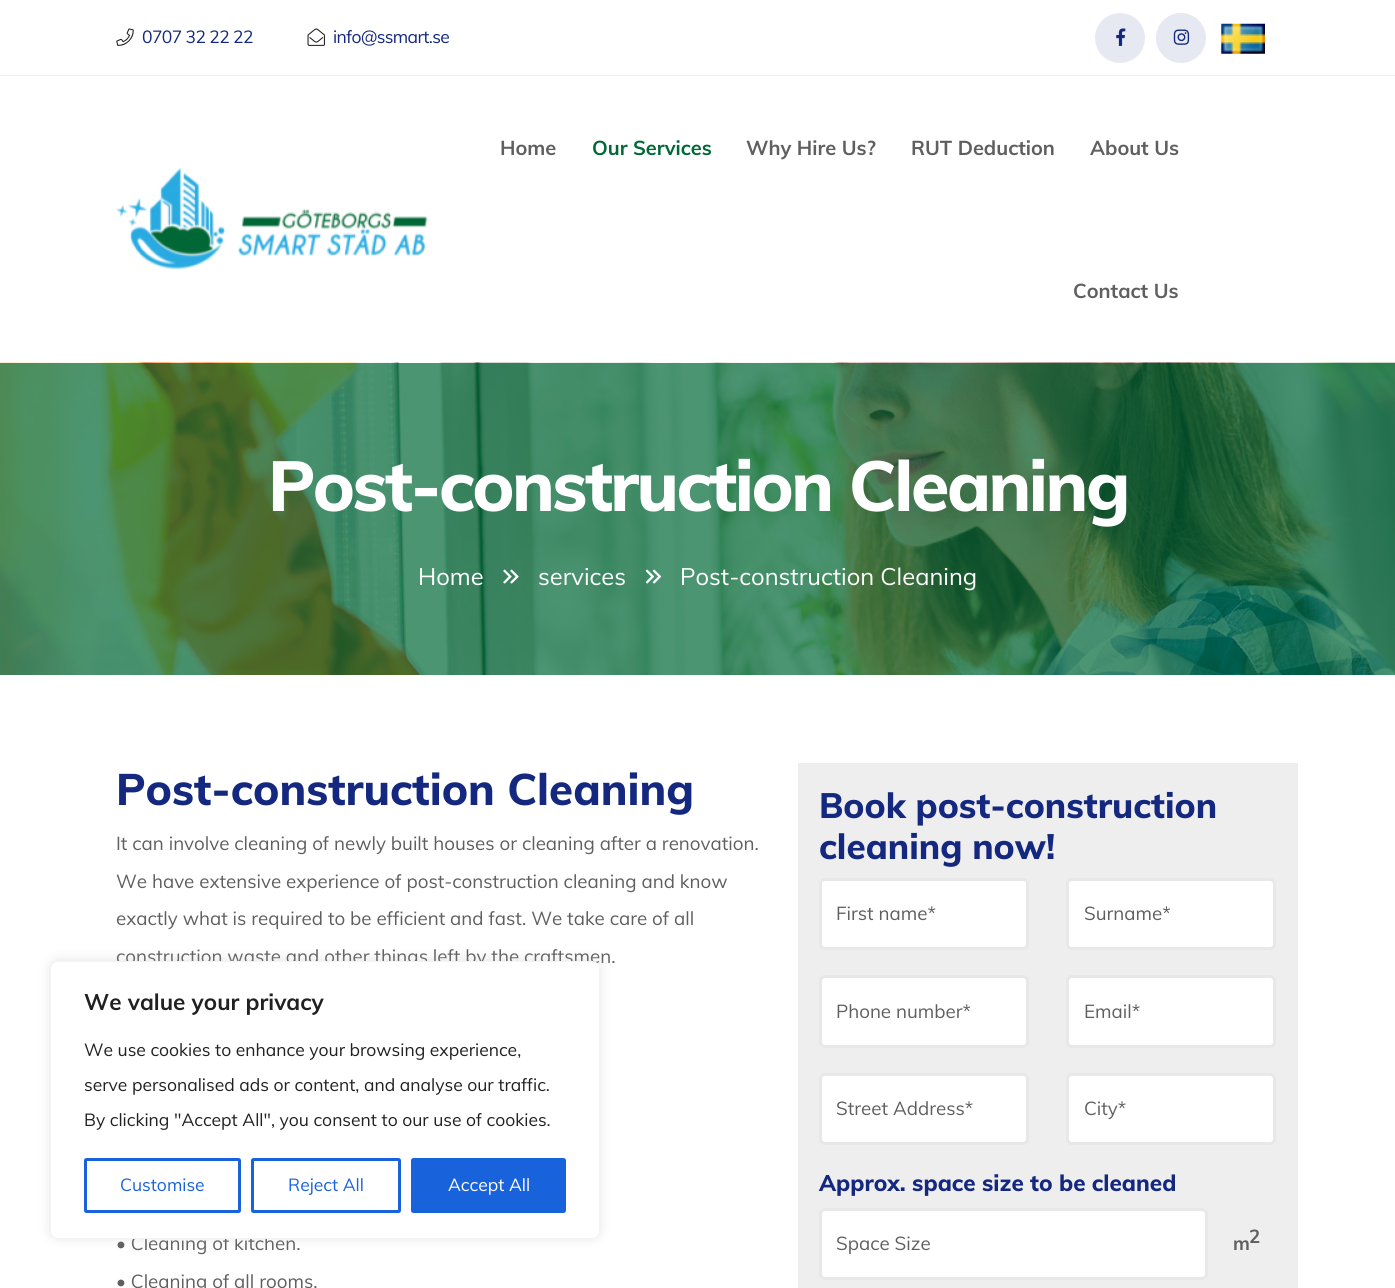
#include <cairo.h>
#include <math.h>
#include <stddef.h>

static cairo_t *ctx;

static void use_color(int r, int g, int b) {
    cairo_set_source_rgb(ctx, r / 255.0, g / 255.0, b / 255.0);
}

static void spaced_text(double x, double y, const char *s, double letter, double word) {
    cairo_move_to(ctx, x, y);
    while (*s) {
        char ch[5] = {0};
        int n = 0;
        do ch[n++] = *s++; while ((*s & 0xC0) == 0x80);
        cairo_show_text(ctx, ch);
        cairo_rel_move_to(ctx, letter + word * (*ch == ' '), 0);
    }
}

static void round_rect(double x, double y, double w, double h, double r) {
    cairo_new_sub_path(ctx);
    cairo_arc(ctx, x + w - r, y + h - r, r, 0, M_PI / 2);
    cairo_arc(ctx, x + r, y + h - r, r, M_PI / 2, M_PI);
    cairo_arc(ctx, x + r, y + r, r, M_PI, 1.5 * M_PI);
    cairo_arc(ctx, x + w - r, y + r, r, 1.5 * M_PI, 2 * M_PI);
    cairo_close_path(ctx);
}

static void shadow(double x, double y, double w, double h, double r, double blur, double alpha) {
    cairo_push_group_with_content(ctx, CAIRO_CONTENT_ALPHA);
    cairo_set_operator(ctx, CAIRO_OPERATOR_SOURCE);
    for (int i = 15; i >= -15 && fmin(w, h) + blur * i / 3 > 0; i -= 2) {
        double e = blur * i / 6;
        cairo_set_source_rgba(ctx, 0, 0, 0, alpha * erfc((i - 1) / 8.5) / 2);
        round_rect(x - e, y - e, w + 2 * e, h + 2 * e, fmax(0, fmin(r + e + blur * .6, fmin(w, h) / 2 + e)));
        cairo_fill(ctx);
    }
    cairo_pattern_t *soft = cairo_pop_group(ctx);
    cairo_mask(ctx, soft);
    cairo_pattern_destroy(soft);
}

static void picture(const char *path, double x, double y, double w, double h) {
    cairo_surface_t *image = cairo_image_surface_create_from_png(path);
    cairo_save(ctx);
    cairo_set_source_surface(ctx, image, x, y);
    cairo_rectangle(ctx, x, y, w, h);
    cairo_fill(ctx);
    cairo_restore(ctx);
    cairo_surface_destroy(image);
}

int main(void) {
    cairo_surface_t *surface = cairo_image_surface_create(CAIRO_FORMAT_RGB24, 1395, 1288);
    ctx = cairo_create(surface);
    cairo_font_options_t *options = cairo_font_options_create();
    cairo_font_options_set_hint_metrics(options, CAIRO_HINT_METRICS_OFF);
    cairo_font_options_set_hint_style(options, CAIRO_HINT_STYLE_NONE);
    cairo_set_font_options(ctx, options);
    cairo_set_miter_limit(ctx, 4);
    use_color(255, 255, 255);
    cairo_paint(ctx);
    use_color(235, 239, 255);
    cairo_rectangle(ctx, 0, 75, 1395, 1);
    cairo_fill(ctx);
    picture("img1.png", 116, 28, 18, 18);
    cairo_select_font_face(ctx, "Muli", CAIRO_FONT_SLANT_NORMAL, CAIRO_FONT_WEIGHT_NORMAL);
    cairo_set_font_size(ctx, 17.5);
    use_color(19, 40, 126);
    spaced_text(142, 43, "0707 32 22 22", -0.6, 0);
    picture("img2.png", 307, 28, 18, 18);
    spaced_text(333, 43, "info@ssmart.se", -0.6, 0);
    use_color(231, 233, 242);
    cairo_new_path(ctx);
    cairo_arc(ctx, 1120, 38, 25, 0, 2 * M_PI);
    cairo_fill(ctx);
    picture("img3.png", 1116, 28, 10, 18);
    cairo_arc(ctx, 1181, 38, 25, 0, 2 * M_PI);
    cairo_fill(ctx);
    picture("img4.png", 1173, 29, 17, 16);
    picture("img5.png", 1221, 23, 44, 31);
    picture("img6.png", 116, 167, 312, 103);
    cairo_select_font_face(ctx, "Muli", CAIRO_FONT_SLANT_NORMAL, CAIRO_FONT_WEIGHT_BOLD);
    cairo_set_font_size(ctx, 20);
    use_color(95, 95, 95);
    cairo_move_to(ctx, 500, 155);
    cairo_show_text(ctx, "Home");
    use_color(0, 104, 55);
    cairo_move_to(ctx, 592, 155);
    cairo_show_text(ctx, "Our Services");
    use_color(95, 95, 95);
    cairo_move_to(ctx, 746, 155);
    cairo_show_text(ctx, "Why Hire Us?");
    cairo_move_to(ctx, 911, 155);
    cairo_show_text(ctx, "RUT Deduction");
    cairo_move_to(ctx, 1090, 155);
    cairo_show_text(ctx, "About Us");
    cairo_move_to(ctx, 1073, 298);
    cairo_show_text(ctx, "Contact Us");
    picture("img7.png", 0, 362, 1395, 313);
    cairo_select_font_face(ctx, "Muli ExtraBold", CAIRO_FONT_SLANT_NORMAL, CAIRO_FONT_WEIGHT_NORMAL);
    cairo_set_font_size(ctx, 70);
    use_color(255, 255, 255);
    spaced_text(268, 511, "Post-construction Cleaning", -2.5, 0);
    cairo_select_font_face(ctx, "Muli", CAIRO_FONT_SLANT_NORMAL, CAIRO_FONT_WEIGHT_NORMAL);
    cairo_set_font_size(ctx, 23.75);
    cairo_move_to(ctx, 418, 585);
    cairo_show_text(ctx, "Home");
    picture("img8.png", 503, 569, 16, 15);
    cairo_move_to(ctx, 538, 585);
    cairo_show_text(ctx, "services");
    picture("img9.png", 645, 569, 17, 15);
    cairo_move_to(ctx, 680, 585);
    cairo_show_text(ctx, "Post-construction Cleaning");
    cairo_select_font_face(ctx, "Muli ExtraBold", CAIRO_FONT_SLANT_NORMAL, CAIRO_FONT_WEIGHT_NORMAL);
    cairo_set_font_size(ctx, 43.75);
    use_color(19, 40, 126);
    cairo_move_to(ctx, 116, 805);
    cairo_show_text(ctx, "Post-construction Cleaning");
    cairo_select_font_face(ctx, "Muli", CAIRO_FONT_SLANT_NORMAL, CAIRO_FONT_WEIGHT_NORMAL);
    cairo_set_font_size(ctx, 18.75);
    use_color(95, 95, 95);
    cairo_move_to(ctx, 116, 850);
    cairo_show_text(ctx, "It can involve cleaning of newly built houses or cleaning after a renovation.");
    cairo_move_to(ctx, 116, 888);
    cairo_show_text(ctx, "We have extensive experience of post-construction cleaning and know");
    cairo_move_to(ctx, 116, 925);
    cairo_show_text(ctx, "exactly what is required to be efficient and fast. We take care of all");
    cairo_move_to(ctx, 116, 963);
    cairo_show_text(ctx, "construction waste and other things left by the craftsmen.");
    cairo_move_to(ctx, 116, 1250);
    cairo_show_text(ctx, "• Cleaning of kitchen.");
    cairo_move_to(ctx, 116, 1288);
    cairo_show_text(ctx, "• Cleaning of all rooms.");
    use_color(238, 238, 238);
    cairo_rectangle(ctx, 798, 763, 500, 525);
    cairo_fill(ctx);
    cairo_select_font_face(ctx, "Muli ExtraBold", CAIRO_FONT_SLANT_NORMAL, CAIRO_FONT_WEIGHT_NORMAL);
    cairo_set_font_size(ctx, 35);
    use_color(19, 40, 126);
    cairo_move_to(ctx, 819, 818);
    cairo_show_text(ctx, "Book post-construction");
    cairo_move_to(ctx, 819, 859);
    cairo_show_text(ctx, "cleaning now!");
    use_color(255, 255, 255);
    round_rect(820.5, 879.5, 207, 69, 4.5);
    cairo_fill_preserve(ctx);
    use_color(232, 232, 232);
    cairo_set_line_width(ctx, 3);
    cairo_stroke(ctx);
    cairo_select_font_face(ctx, "Muli", CAIRO_FONT_SLANT_NORMAL, CAIRO_FONT_WEIGHT_NORMAL);
    cairo_set_font_size(ctx, 18.75);
    use_color(95, 95, 95);
    cairo_move_to(ctx, 836, 920);
    cairo_show_text(ctx, "First name*");
    use_color(255, 255, 255);
    round_rect(1067.5, 879.5, 207, 69, 4.5);
    cairo_fill_preserve(ctx);
    use_color(232, 232, 232);
    cairo_stroke(ctx);
    use_color(95, 95, 95);
    cairo_move_to(ctx, 1084, 920);
    cairo_show_text(ctx, "Surname*");
    use_color(255, 255, 255);
    round_rect(820.5, 976.5, 207, 70, 4.5);
    cairo_fill_preserve(ctx);
    use_color(232, 232, 232);
    cairo_stroke(ctx);
    use_color(95, 95, 95);
    cairo_move_to(ctx, 836, 1018);
    cairo_show_text(ctx, "Phone number*");
    use_color(255, 255, 255);
    round_rect(1067.5, 976.5, 207, 70, 4.5);
    cairo_fill_preserve(ctx);
    use_color(232, 232, 232);
    cairo_stroke(ctx);
    use_color(95, 95, 95);
    cairo_move_to(ctx, 1084, 1018);
    cairo_show_text(ctx, "Email*");
    use_color(255, 255, 255);
    round_rect(820.5, 1074.5, 207, 69, 4.5);
    cairo_fill_preserve(ctx);
    use_color(232, 232, 232);
    cairo_stroke(ctx);
    use_color(95, 95, 95);
    cairo_move_to(ctx, 836, 1115);
    cairo_show_text(ctx, "Street Address*");
    use_color(255, 255, 255);
    round_rect(1067.5, 1074.5, 207, 69, 4.5);
    cairo_fill_preserve(ctx);
    use_color(232, 232, 232);
    cairo_stroke(ctx);
    use_color(95, 95, 95);
    cairo_move_to(ctx, 1084, 1115);
    cairo_show_text(ctx, "City*");
    cairo_select_font_face(ctx, "Muli ExtraBold", CAIRO_FONT_SLANT_NORMAL, CAIRO_FONT_WEIGHT_NORMAL);
    cairo_set_font_size(ctx, 22.5);
    use_color(19, 40, 126);
    cairo_move_to(ctx, 819, 1191);
    cairo_show_text(ctx, "Approx. space size to be cleaned");
    use_color(255, 255, 255);
    round_rect(820.5, 1209.5, 386, 69, 4.5);
    cairo_fill_preserve(ctx);
    use_color(232, 232, 232);
    cairo_stroke(ctx);
    cairo_select_font_face(ctx, "Muli", CAIRO_FONT_SLANT_NORMAL, CAIRO_FONT_WEIGHT_NORMAL);
    cairo_set_font_size(ctx, 18.75);
    use_color(95, 95, 95);
    cairo_move_to(ctx, 836, 1250);
    cairo_show_text(ctx, "Space Size");
    cairo_select_font_face(ctx, "Muli", CAIRO_FONT_SLANT_NORMAL, CAIRO_FONT_WEIGHT_BOLD);
    cairo_move_to(ctx, 1249, 1243);
    cairo_show_text(ctx, "2");
    cairo_move_to(ctx, 1233, 1250);
    cairo_show_text(ctx, "m");
    use_color(172, 171, 171);
    shadow(50, 960, 550, 278, 8, 6, 0.3);
    use_color(255, 255, 255);
    round_rect(50.5, 961.5, 549, 277, 7.5);
    cairo_fill_preserve(ctx);
    use_color(244, 244, 244);
    cairo_set_line_width(ctx, 1);
    cairo_stroke(ctx);
    cairo_set_font_size(ctx, 22.5);
    use_color(33, 33, 33);
    cairo_move_to(ctx, 84, 1010);
    cairo_show_text(ctx, "We value your privacy");
    cairo_select_font_face(ctx, "Muli", CAIRO_FONT_SLANT_NORMAL, CAIRO_FONT_WEIGHT_NORMAL);
    cairo_set_font_size(ctx, 17.5);
    cairo_move_to(ctx, 84, 1056);
    cairo_show_text(ctx, "We use cookies to enhance your browsing experience,");
    cairo_move_to(ctx, 84, 1091);
    cairo_show_text(ctx, "serve personalised ads or content, and analyse our traffic.");
    cairo_move_to(ctx, 84, 1126);
    cairo_show_text(ctx, "By clicking \"Accept All\", you consent to our use of cookies.");
    round_rect(85.5, 1159.5, 154, 52, 1);
    use_color(24, 99, 220);
    cairo_set_line_width(ctx, 3);
    cairo_stroke(ctx);
    cairo_move_to(ctx, 120, 1191);
    cairo_show_text(ctx, "Customise");
    round_rect(252.5, 1159.5, 147, 52, 1);
    cairo_stroke(ctx);
    cairo_move_to(ctx, 288, 1191);
    cairo_show_text(ctx, "Reject All");
    round_rect(412.5, 1159.5, 152, 52, 1);
    cairo_fill_preserve(ctx);
    cairo_stroke(ctx);
    use_color(255, 255, 255);
    cairo_move_to(ctx, 448, 1191);
    cairo_show_text(ctx, "Accept All");
    cairo_surface_write_to_png(surface, "result.png");
    cairo_font_options_destroy(options);
    cairo_destroy(ctx);
    cairo_surface_destroy(surface);
    return 0;
}
